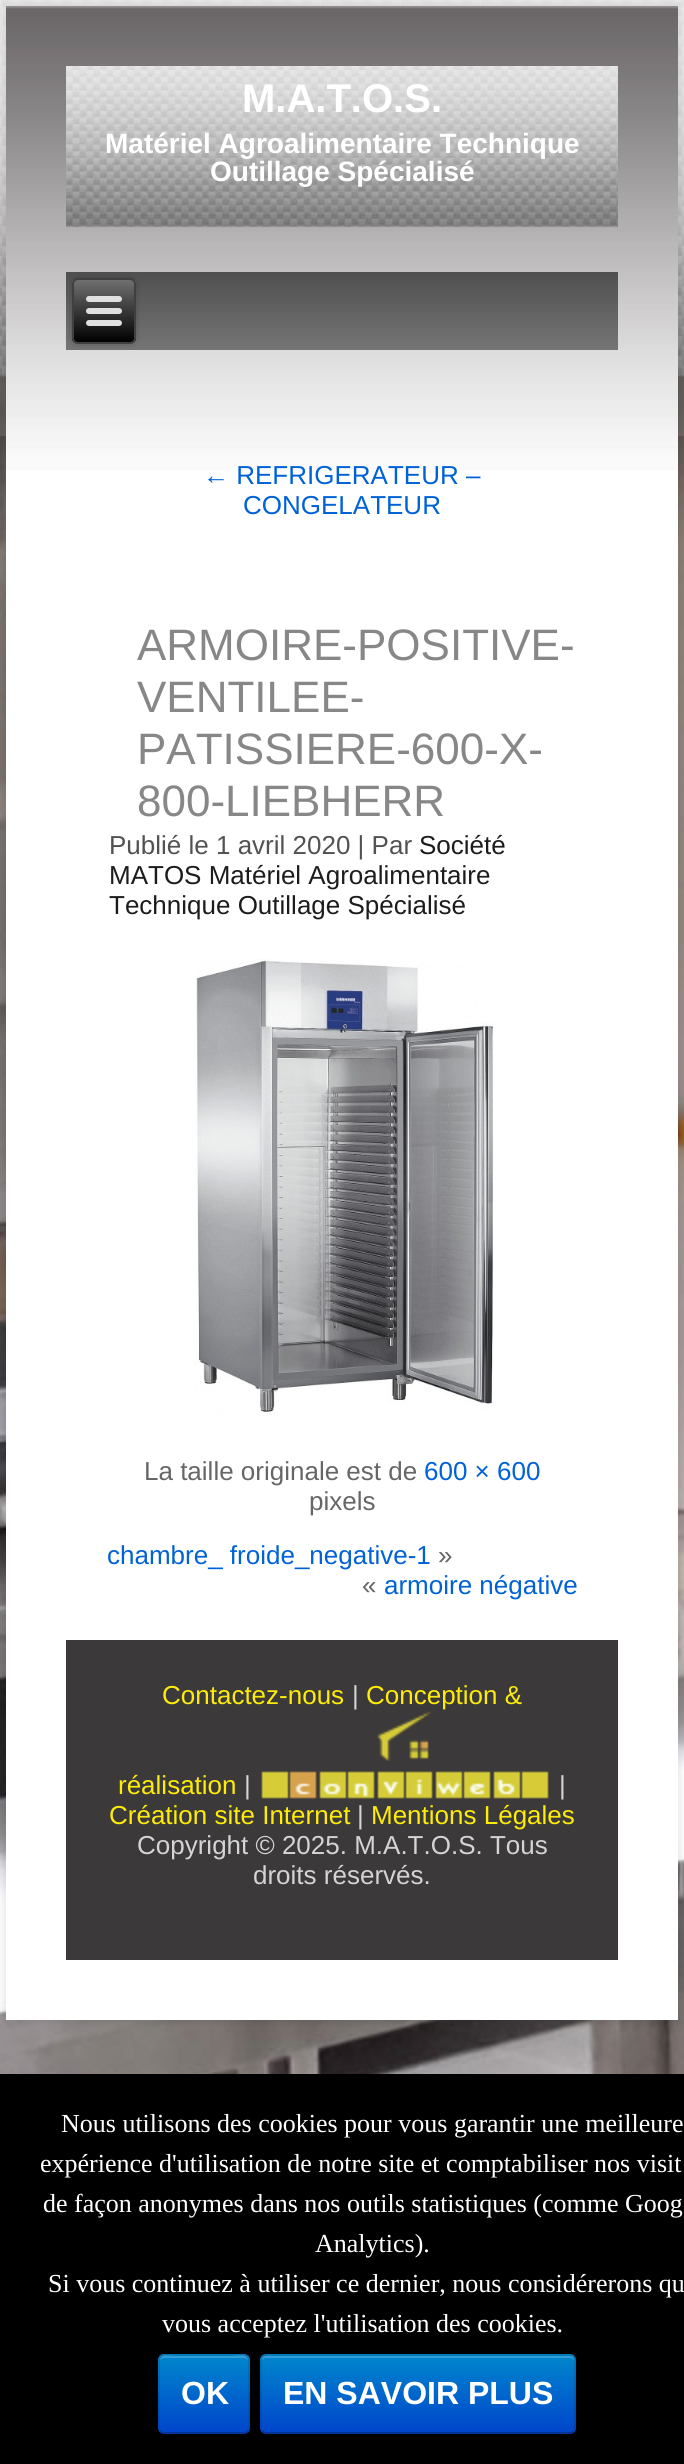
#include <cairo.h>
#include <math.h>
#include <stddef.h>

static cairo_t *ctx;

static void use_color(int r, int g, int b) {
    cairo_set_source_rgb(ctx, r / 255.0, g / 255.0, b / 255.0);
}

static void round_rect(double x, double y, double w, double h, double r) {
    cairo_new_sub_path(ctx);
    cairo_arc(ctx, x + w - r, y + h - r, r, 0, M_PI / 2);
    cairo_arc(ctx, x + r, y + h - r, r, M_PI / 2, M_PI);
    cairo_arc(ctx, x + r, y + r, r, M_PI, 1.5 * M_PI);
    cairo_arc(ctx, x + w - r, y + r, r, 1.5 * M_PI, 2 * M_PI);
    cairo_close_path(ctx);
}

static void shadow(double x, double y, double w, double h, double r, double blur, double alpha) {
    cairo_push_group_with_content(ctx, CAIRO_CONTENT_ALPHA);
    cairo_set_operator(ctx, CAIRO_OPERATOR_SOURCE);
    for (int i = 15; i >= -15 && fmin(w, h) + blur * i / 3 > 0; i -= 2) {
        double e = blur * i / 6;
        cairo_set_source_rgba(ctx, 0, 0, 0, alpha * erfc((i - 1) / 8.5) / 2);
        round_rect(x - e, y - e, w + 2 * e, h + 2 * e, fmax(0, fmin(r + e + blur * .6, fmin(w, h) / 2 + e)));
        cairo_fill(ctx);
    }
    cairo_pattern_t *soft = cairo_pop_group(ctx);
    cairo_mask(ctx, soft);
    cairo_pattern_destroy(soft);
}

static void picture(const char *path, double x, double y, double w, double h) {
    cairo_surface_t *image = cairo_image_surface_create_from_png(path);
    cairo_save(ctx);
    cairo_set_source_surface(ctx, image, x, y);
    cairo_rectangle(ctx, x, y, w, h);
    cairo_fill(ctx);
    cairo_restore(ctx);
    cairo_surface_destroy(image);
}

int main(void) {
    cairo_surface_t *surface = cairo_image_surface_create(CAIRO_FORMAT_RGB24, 684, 2464);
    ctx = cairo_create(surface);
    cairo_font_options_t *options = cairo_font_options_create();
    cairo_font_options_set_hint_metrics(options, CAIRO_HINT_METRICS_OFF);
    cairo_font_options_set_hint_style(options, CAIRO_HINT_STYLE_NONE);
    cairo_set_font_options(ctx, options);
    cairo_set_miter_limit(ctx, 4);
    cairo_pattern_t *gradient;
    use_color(255, 255, 255);
    cairo_paint(ctx);
    picture("img1.png", 0, 0, 684, 2074);
    use_color(0, 0, 0);
    shadow(2, 2, 680, 2022, 0, 3, 0.07);
    use_color(255, 255, 255);
    cairo_rectangle(ctx, 6, 470, 672, 1550);
    cairo_fill(ctx);
    picture("img2.png", 6, 6, 672, 464);
    picture("img3.png", 66, 66, 552, 162);
    cairo_select_font_face(ctx, "Liberation Sans", CAIRO_FONT_SLANT_NORMAL, CAIRO_FONT_WEIGHT_BOLD);
    cairo_set_font_size(ctx, 40);
    cairo_move_to(ctx, 242, 112);
    cairo_show_text(ctx, "M.A.T.O.S.");
    cairo_set_font_size(ctx, 28);
    cairo_move_to(ctx, 105, 153);
    cairo_show_text(ctx, "Matériel Agroalimentaire Technique");
    cairo_move_to(ctx, 210, 181);
    cairo_show_text(ctx, "Outillage Spécialisé");
    gradient = cairo_pattern_create_linear(342, 272, 342, 350);
    cairo_pattern_add_color_stop_rgba(gradient, 0, 0.31, 0.31, 0.31, 1);
    cairo_pattern_add_color_stop_rgba(gradient, 1, 0.459, 0.459, 0.459, 1);
    cairo_set_source(ctx, gradient);
    cairo_pattern_destroy(gradient);
    cairo_rectangle(ctx, 66, 272, 552, 78);
    cairo_fill(ctx);
    use_color(0, 0, 0);
    shadow(72, 278, 64, 66, 6, 3, 0.2);
    cairo_save(ctx);
    round_rect(72, 278, 64, 66, 6);
    cairo_clip(ctx);
    gradient = cairo_pattern_create_linear(104, 280, 104, 342);
    cairo_pattern_add_color_stop_rgba(gradient, 0, 0.439, 0.439, 0.439, 1);
    cairo_pattern_add_color_stop_rgba(gradient, 1, 0, 0, 0, 1);
    cairo_set_source(ctx, gradient);
    cairo_pattern_destroy(gradient);
    cairo_rectangle(ctx, 72, 280, 64, 62);
    cairo_fill(ctx);
    cairo_restore(ctx);
    round_rect(73, 279, 62, 64, 5);
    use_color(64, 64, 64);
    cairo_stroke(ctx);
    use_color(224, 224, 224);
    round_rect(86, 296, 36, 6, 3);
    cairo_fill(ctx);
    round_rect(86, 308, 36, 6, 3);
    cairo_fill(ctx);
    round_rect(86, 320, 36, 6, 3);
    cairo_fill(ctx);
    cairo_select_font_face(ctx, "Liberation Sans", CAIRO_FONT_SLANT_NORMAL, CAIRO_FONT_WEIGHT_NORMAL);
    cairo_set_font_size(ctx, 26);
    use_color(0, 98, 214);
    cairo_move_to(ctx, 203, 484);
    cairo_show_text(ctx, "← REFRIGERATEUR –");
    cairo_move_to(ctx, 243, 514);
    cairo_show_text(ctx, "CONGELATEUR");
    cairo_set_font_size(ctx, 44);
    use_color(135, 135, 135);
    cairo_move_to(ctx, 137, 660);
    cairo_show_text(ctx, "ARMOIRE-POSITIVE-");
    cairo_move_to(ctx, 137, 712);
    cairo_show_text(ctx, "VENTILEE-");
    cairo_move_to(ctx, 137, 764);
    cairo_show_text(ctx, "PATISSIERE-600-X-");
    cairo_move_to(ctx, 137, 816);
    cairo_show_text(ctx, "800-LIEBHERR");
    cairo_set_font_size(ctx, 26);
    use_color(82, 82, 82);
    cairo_move_to(ctx, 109, 854);
    cairo_show_text(ctx, "Publié le 1 avril 2020 | Par");
    use_color(28, 28, 28);
    cairo_move_to(ctx, 419, 854);
    cairo_show_text(ctx, "Société");
    cairo_move_to(ctx, 109, 884);
    cairo_show_text(ctx, "MATOS Matériel Agroalimentaire");
    cairo_move_to(ctx, 109, 914);
    cairo_show_text(ctx, "Technique Outillage Spécialisé");
    picture("img4.png", 194, 959, 300, 457);
    use_color(102, 102, 102);
    cairo_move_to(ctx, 144, 1480);
    cairo_show_text(ctx, "La taille originale est de");
    use_color(0, 98, 214);
    cairo_move_to(ctx, 424, 1480);
    cairo_show_text(ctx, "600 × 600");
    use_color(102, 102, 102);
    cairo_move_to(ctx, 309, 1510);
    cairo_show_text(ctx, "pixels");
    use_color(0, 98, 214);
    cairo_move_to(ctx, 107, 1564);
    cairo_show_text(ctx, "chambre_ froide_negative-1");
    use_color(102, 102, 102);
    cairo_move_to(ctx, 438, 1564);
    cairo_show_text(ctx, "»");
    cairo_move_to(ctx, 362, 1594);
    cairo_show_text(ctx, "«");
    use_color(0, 98, 214);
    cairo_move_to(ctx, 384, 1594);
    cairo_show_text(ctx, "armoire négative");
    use_color(60, 57, 58);
    cairo_rectangle(ctx, 66, 1640, 552, 320);
    cairo_fill(ctx);
    use_color(253, 236, 8);
    cairo_move_to(ctx, 162, 1704);
    cairo_show_text(ctx, "Contactez-nous");
    use_color(212, 212, 212);
    cairo_move_to(ctx, 352, 1704);
    cairo_show_text(ctx, "|");
    use_color(253, 236, 8);
    cairo_move_to(ctx, 366, 1704);
    cairo_show_text(ctx, "Conception &");
    cairo_move_to(ctx, 118, 1794);
    cairo_show_text(ctx, "réalisation");
    use_color(212, 212, 212);
    cairo_move_to(ctx, 244, 1794);
    cairo_show_text(ctx, "|");
    picture("img5.png", 261, 1711, 288, 88);
    cairo_move_to(ctx, 559, 1794);
    cairo_show_text(ctx, "|");
    use_color(253, 236, 8);
    cairo_move_to(ctx, 109, 1824);
    cairo_show_text(ctx, "Création site Internet");
    use_color(212, 212, 212);
    cairo_move_to(ctx, 357, 1824);
    cairo_show_text(ctx, "|");
    use_color(253, 236, 8);
    cairo_move_to(ctx, 371, 1824);
    cairo_show_text(ctx, "Mentions Légales");
    use_color(212, 212, 212);
    cairo_move_to(ctx, 137, 1854);
    cairo_show_text(ctx, "Copyright © 2025. M.A.T.O.S. Tous");
    cairo_move_to(ctx, 253, 1884);
    cairo_show_text(ctx, "droits réservés.");
    use_color(0, 0, 0);
    cairo_rectangle(ctx, 0, 2074, 684, 390);
    cairo_fill(ctx);
    cairo_select_font_face(ctx, "Liberation Serif", CAIRO_FONT_SLANT_NORMAL, CAIRO_FONT_WEIGHT_NORMAL);
    use_color(255, 255, 255);
    cairo_move_to(ctx, 61, 2132);
    cairo_show_text(ctx, "Nous utilisons des cookies pour vous garantir une meilleure");
    cairo_move_to(ctx, 40, 2172);
    cairo_show_text(ctx, "expérience d'utilisation de notre site et comptabiliser nos visit");
    cairo_move_to(ctx, 43, 2212);
    cairo_show_text(ctx, "de façon anonymes dans nos outils statistiques (comme Goog");
    cairo_move_to(ctx, 315, 2252);
    cairo_show_text(ctx, "Analytics).");
    cairo_move_to(ctx, 48, 2292);
    cairo_show_text(ctx, "Si vous continuez à utiliser ce dernier, nous considérerons qu");
    cairo_move_to(ctx, 162, 2332);
    cairo_show_text(ctx, "vous acceptez l'utilisation des cookies.");
    gradient = cairo_pattern_create_linear(204, 2354, 204, 2434);
    cairo_pattern_add_color_stop_rgba(gradient, 0, 0, 0.533, 0.8, 1);
    cairo_pattern_add_color_stop_rgba(gradient, 1, 0, 0.267, 0.8, 1);
    cairo_set_source(ctx, gradient);
    cairo_pattern_destroy(gradient);
    round_rect(158, 2354, 92, 80, 6);
    cairo_fill(ctx);
    cairo_set_source_rgba(ctx, 1, 1, 1, 0.2);
    cairo_new_path(ctx);
    cairo_move_to(ctx, 164, 2358);
    cairo_line_to(ctx, 244, 2358);
    cairo_curve_to(ctx, 246, 2358, 248, 2360, 248, 2362);
    cairo_curve_to(ctx, 248, 2352, 239, 2356, 231, 2356);
    cairo_line_to(ctx, 177, 2356);
    cairo_curve_to(ctx, 169, 2356, 160, 2352, 160, 2362);
    cairo_curve_to(ctx, 160, 2360, 162, 2358, 164, 2358);
    cairo_close_path(ctx);
    cairo_fill(ctx);
    cairo_new_path(ctx);
    cairo_move_to(ctx, 247.5, 2431.5);
    cairo_line_to(ctx, 244.5, 2433);
    cairo_line_to(ctx, 163.5, 2433);
    cairo_line_to(ctx, 160.5, 2431.5);
    cairo_set_source_rgba(ctx, 0, 0, 0, 0.25);
    cairo_stroke(ctx);
    cairo_new_path(ctx);
    cairo_move_to(ctx, 160.5, 2431.5);
    cairo_curve_to(ctx, 157, 2428.5, 159, 2418.5, 159, 2416.5);
    cairo_line_to(ctx, 159, 2371.5);
    cairo_curve_to(ctx, 159, 2352.5, 158, 2355, 177.5, 2355);
    cairo_line_to(ctx, 230.5, 2355);
    cairo_curve_to(ctx, 250, 2355, 249, 2352.5, 249, 2371.5);
    cairo_line_to(ctx, 249, 2416.5);
    cairo_curve_to(ctx, 249, 2418.5, 251, 2428.5, 247.5, 2431.5);
    cairo_set_source_rgba(ctx, 0, 0, 0, 0.1);
    cairo_stroke(ctx);
    cairo_select_font_face(ctx, "Liberation Sans", CAIRO_FONT_SLANT_NORMAL, CAIRO_FONT_WEIGHT_BOLD);
    cairo_set_font_size(ctx, 32);
    use_color(255, 255, 255);
    cairo_move_to(ctx, 181, 2404);
    cairo_show_text(ctx, "OK");
    gradient = cairo_pattern_create_linear(418, 2354, 418, 2434);
    cairo_pattern_add_color_stop_rgba(gradient, 0, 0, 0.533, 0.8, 1);
    cairo_pattern_add_color_stop_rgba(gradient, 1, 0, 0.267, 0.8, 1);
    cairo_set_source(ctx, gradient);
    cairo_pattern_destroy(gradient);
    round_rect(260, 2354, 316, 80, 6);
    cairo_fill(ctx);
    cairo_set_source_rgba(ctx, 1, 1, 1, 0.2);
    cairo_new_path(ctx);
    cairo_move_to(ctx, 266, 2358);
    cairo_line_to(ctx, 570, 2358);
    cairo_curve_to(ctx, 572, 2358, 574, 2360, 574, 2362);
    cairo_curve_to(ctx, 574, 2359, 574, 2356, 570, 2356);
    cairo_line_to(ctx, 266, 2356);
    cairo_curve_to(ctx, 262, 2356, 262, 2359, 262, 2362);
    cairo_curve_to(ctx, 262, 2360, 264, 2358, 266, 2358);
    cairo_close_path(ctx);
    cairo_fill(ctx);
    cairo_new_path(ctx);
    cairo_move_to(ctx, 573.5, 2431.5);
    cairo_curve_to(ctx, 572.5, 2432.5, 571.5, 2433, 570, 2433);
    cairo_line_to(ctx, 266, 2433);
    cairo_curve_to(ctx, 264.5, 2433, 263.5, 2432.5, 262.5, 2431.5);
    cairo_set_source_rgba(ctx, 0, 0, 0, 0.25);
    cairo_stroke(ctx);
    cairo_new_path(ctx);
    cairo_move_to(ctx, 262.5, 2431.5);
    cairo_curve_to(ctx, 261.5, 2430.5, 261, 2429.5, 261, 2428);
    cairo_line_to(ctx, 261, 2360);
    cairo_curve_to(ctx, 261, 2358.5, 261.5, 2357.5, 262.5, 2356.5);
    cairo_curve_to(ctx, 263.5, 2355.5, 264.5, 2355, 266, 2355);
    cairo_line_to(ctx, 570, 2355);
    cairo_curve_to(ctx, 571.5, 2355, 572.5, 2355.5, 573.5, 2356.5);
    cairo_curve_to(ctx, 574.5, 2357.5, 575, 2358.5, 575, 2360);
    cairo_line_to(ctx, 575, 2428);
    cairo_curve_to(ctx, 575, 2429.5, 574.5, 2430.5, 573.5, 2431.5);
    cairo_set_source_rgba(ctx, 0, 0, 0, 0.1);
    cairo_stroke(ctx);
    use_color(255, 255, 255);
    cairo_move_to(ctx, 283, 2404);
    cairo_show_text(ctx, "EN SAVOIR PLUS");
    cairo_surface_write_to_png(surface, "result.png");
    cairo_font_options_destroy(options);
    cairo_destroy(ctx);
    cairo_surface_destroy(surface);
    return 0;
}
